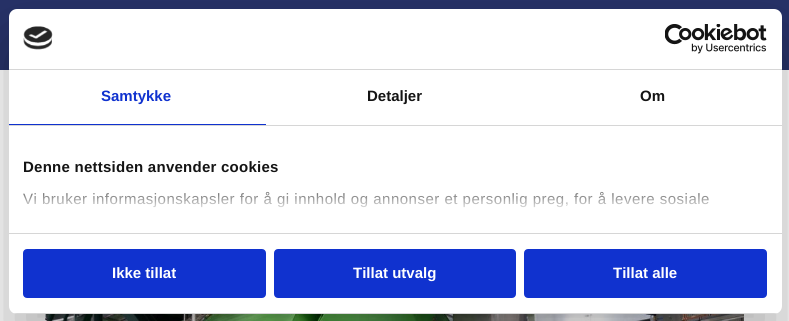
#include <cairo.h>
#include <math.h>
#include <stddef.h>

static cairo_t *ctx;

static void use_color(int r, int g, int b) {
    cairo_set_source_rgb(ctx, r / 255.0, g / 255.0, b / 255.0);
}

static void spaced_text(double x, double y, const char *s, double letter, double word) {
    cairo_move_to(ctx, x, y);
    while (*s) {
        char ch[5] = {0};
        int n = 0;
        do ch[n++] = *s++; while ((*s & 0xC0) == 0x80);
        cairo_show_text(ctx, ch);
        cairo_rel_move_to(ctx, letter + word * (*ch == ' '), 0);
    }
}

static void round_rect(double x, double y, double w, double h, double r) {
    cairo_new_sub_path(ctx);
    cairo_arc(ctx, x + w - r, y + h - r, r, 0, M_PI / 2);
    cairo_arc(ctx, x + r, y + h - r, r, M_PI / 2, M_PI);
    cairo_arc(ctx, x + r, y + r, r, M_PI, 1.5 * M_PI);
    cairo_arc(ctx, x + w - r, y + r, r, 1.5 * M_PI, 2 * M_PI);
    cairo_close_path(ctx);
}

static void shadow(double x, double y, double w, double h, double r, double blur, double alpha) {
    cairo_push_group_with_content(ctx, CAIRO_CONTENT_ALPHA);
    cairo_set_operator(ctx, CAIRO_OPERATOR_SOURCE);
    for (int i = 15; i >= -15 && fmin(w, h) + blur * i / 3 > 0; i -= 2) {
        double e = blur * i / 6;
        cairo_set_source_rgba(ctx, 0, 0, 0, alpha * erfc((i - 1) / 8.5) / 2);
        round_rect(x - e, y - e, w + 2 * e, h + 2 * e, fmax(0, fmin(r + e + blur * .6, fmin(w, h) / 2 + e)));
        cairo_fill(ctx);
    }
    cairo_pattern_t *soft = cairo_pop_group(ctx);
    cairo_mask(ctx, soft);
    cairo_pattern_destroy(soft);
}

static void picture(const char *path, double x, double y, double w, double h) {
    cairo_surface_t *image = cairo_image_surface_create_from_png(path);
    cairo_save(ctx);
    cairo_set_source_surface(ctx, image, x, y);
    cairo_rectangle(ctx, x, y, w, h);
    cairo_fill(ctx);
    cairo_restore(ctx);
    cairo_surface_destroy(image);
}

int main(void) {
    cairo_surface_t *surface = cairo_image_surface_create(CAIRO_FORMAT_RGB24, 789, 321);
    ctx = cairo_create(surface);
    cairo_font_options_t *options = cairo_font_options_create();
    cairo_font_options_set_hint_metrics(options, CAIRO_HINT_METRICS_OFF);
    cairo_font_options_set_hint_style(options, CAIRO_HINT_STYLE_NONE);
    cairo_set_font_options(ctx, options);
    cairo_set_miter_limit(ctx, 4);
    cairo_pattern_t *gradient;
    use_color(39, 50, 105);
    cairo_paint(ctx);
    use_color(255, 255, 255);
    cairo_rectangle(ctx, 0, 70, 789, 251);
    cairo_fill(ctx);
    picture("img1.png", 45, 314, 699, 7);
    use_color(0, 0, 0);
    shadow(9, 41, 773, 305, 8, 34, 0.3);
    use_color(255, 255, 255);
    round_rect(9, 9, 773, 305, 8);
    cairo_fill(ctx);
    use_color(214, 214, 214);
    cairo_rectangle(ctx, 9, 69, 773, 1);
    cairo_fill(ctx);
    picture("img2.png", 23, 26, 30, 24);
    picture("img3.png", 665, 24, 102, 30);
    cairo_rectangle(ctx, 9, 125, 773, 1);
    cairo_fill(ctx);
    use_color(16, 50, 207);
    cairo_rectangle(ctx, 9, 124, 257, 1);
    cairo_fill(ctx);
    cairo_select_font_face(ctx, "Liberation Sans", CAIRO_FONT_SLANT_NORMAL, CAIRO_FONT_WEIGHT_BOLD);
    cairo_set_font_size(ctx, 15);
    cairo_move_to(ctx, 101, 101);
    cairo_show_text(ctx, "Samtykke");
    use_color(20, 20, 20);
    cairo_move_to(ctx, 367, 101);
    cairo_show_text(ctx, "Detaljer");
    cairo_move_to(ctx, 640, 101);
    cairo_show_text(ctx, "Om");
    use_color(214, 214, 214);
    cairo_rectangle(ctx, 9, 233, 773, 1);
    cairo_fill(ctx);
    use_color(20, 20, 20);
    spaced_text(23, 172, "Denne nettsiden anvender cookies", 0.25, 0);
    cairo_select_font_face(ctx, "Liberation Sans", CAIRO_FONT_SLANT_NORMAL, CAIRO_FONT_WEIGHT_NORMAL);
    spaced_text(23, 204, "Vi bruker informasjonskapsler for å gi innhold og annonser et personlig preg, for å levere sosiale", 0.5, 0);
    gradient = cairo_pattern_create_linear(389, 233, 389, 179);
    cairo_pattern_add_color_stop_rgba(gradient, 0, 1, 1, 1, 1);
    cairo_pattern_add_color_stop_rgba(gradient, 0.5, 1, 1, 1, 0.8);
    cairo_pattern_add_color_stop_rgba(gradient, 1, 1, 1, 1, 0);
    cairo_set_source(ctx, gradient);
    cairo_pattern_destroy(gradient);
    cairo_rectangle(ctx, 23, 191, 686, 17);
    cairo_fill(ctx);
    cairo_save(ctx);
    round_rect(9, 9, 773, 305, 8);
    cairo_clip(ctx);
    use_color(214, 214, 214);
    cairo_rectangle(ctx, 9, 313, 773, 1);
    cairo_fill(ctx);
    cairo_restore(ctx);
    use_color(16, 50, 207);
    round_rect(24, 250, 241, 47, 3);
    cairo_fill_preserve(ctx);
    cairo_stroke(ctx);
    cairo_select_font_face(ctx, "Liberation Sans", CAIRO_FONT_SLANT_NORMAL, CAIRO_FONT_WEIGHT_BOLD);
    use_color(255, 255, 255);
    cairo_move_to(ctx, 112, 278);
    cairo_show_text(ctx, "Ikke tillat");
    use_color(16, 50, 207);
    round_rect(275, 250, 240, 47, 3);
    cairo_fill_preserve(ctx);
    cairo_stroke(ctx);
    use_color(255, 255, 255);
    cairo_move_to(ctx, 353, 278);
    cairo_show_text(ctx, "Tillat utvalg");
    use_color(16, 50, 207);
    round_rect(525, 250, 241, 47, 3);
    cairo_fill_preserve(ctx);
    cairo_stroke(ctx);
    use_color(255, 255, 255);
    cairo_move_to(ctx, 613, 278);
    cairo_show_text(ctx, "Tillat alle");
    cairo_surface_write_to_png(surface, "result.png");
    cairo_font_options_destroy(options);
    cairo_destroy(ctx);
    cairo_surface_destroy(surface);
    return 0;
}
